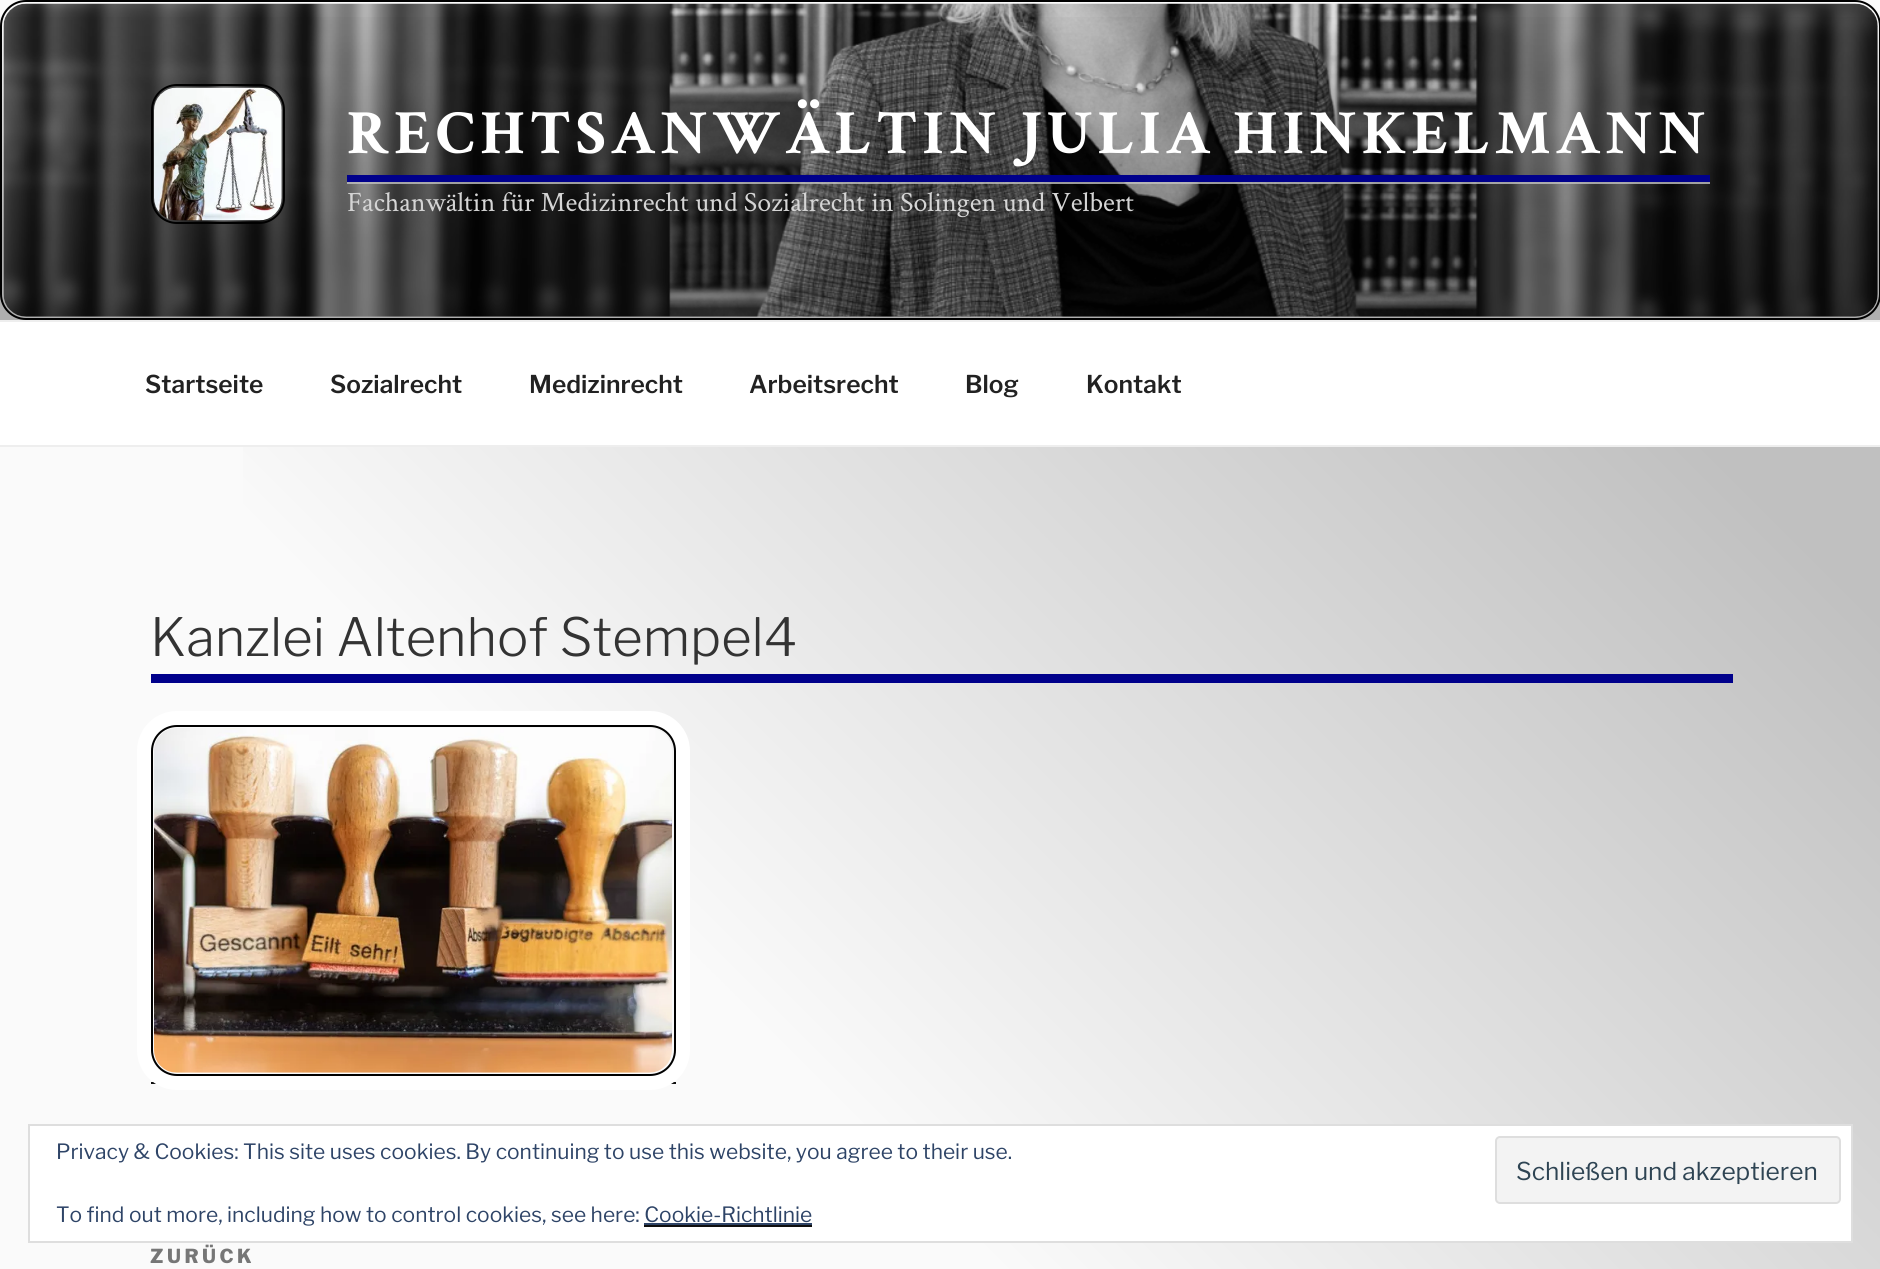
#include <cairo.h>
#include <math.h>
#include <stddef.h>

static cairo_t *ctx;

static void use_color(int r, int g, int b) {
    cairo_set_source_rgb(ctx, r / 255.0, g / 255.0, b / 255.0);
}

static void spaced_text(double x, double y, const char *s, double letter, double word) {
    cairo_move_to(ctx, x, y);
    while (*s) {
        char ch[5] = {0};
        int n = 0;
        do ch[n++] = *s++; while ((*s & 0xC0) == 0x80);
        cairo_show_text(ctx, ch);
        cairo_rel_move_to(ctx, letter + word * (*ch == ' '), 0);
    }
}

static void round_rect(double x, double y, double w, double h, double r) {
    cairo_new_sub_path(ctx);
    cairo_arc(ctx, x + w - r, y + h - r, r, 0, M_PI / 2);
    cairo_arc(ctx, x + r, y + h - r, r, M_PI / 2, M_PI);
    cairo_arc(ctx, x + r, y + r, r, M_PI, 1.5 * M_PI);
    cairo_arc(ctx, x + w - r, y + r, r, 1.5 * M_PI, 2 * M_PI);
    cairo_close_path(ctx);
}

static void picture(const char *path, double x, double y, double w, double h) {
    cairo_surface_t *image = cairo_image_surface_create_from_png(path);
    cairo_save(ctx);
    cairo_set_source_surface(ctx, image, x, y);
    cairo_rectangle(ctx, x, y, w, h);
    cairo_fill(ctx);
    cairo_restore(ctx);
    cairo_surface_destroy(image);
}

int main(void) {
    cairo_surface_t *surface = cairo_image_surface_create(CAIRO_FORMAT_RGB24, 1880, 1269);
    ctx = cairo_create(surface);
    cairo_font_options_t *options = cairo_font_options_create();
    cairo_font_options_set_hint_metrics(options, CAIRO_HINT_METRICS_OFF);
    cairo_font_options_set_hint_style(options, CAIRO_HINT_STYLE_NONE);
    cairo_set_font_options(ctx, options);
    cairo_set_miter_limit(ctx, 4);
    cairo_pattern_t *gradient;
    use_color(250, 250, 250);
    cairo_paint(ctx);
    round_rect(1, 1, 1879, 318, 25);
    use_color(0, 0, 0);
    cairo_stroke(ctx);
    picture("img1.png", 3, 3, 1875, 314);
    gradient = cairo_pattern_create_linear(941, 0, 941, 320);
    cairo_pattern_add_color_stop_rgba(gradient, 0, 0, 0, 0, 0);
    cairo_pattern_add_color_stop_rgba(gradient, 0.75, 0, 0, 0, 0.3);
    cairo_pattern_add_color_stop_rgba(gradient, 1, 0, 0, 0, 0.3);
    cairo_set_source(ctx, gradient);
    cairo_pattern_destroy(gradient);
    cairo_rectangle(ctx, 0, 17, 1880, 303);
    cairo_fill(ctx);
    round_rect(152, 85, 132, 138, 25);
    use_color(0, 0, 0);
    cairo_stroke(ctx);
    picture("img2.png", 154, 87, 128, 134);
    use_color(0, 0, 139);
    cairo_rectangle(ctx, 347, 175, 1363, 7);
    cairo_fill(ctx);
    cairo_select_font_face(ctx, "Crimson Text", CAIRO_FONT_SLANT_NORMAL, CAIRO_FONT_WEIGHT_BOLD);
    cairo_set_font_size(ctx, 63);
    use_color(255, 255, 255);
    spaced_text(347, 153, "RECHTSANWÄLTIN JULIA HINKELMANN", 5.05, 0);
    cairo_set_source_rgba(ctx, 0.753, 0.753, 0.753, 0.8);
    cairo_rectangle(ctx, 347, 182, 1363, 2);
    cairo_fill(ctx);
    cairo_select_font_face(ctx, "Crimson Text", CAIRO_FONT_SLANT_NORMAL, CAIRO_FONT_WEIGHT_NORMAL);
    cairo_set_font_size(ctx, 28);
    use_color(213, 213, 213);
    cairo_move_to(ctx, 347, 211);
    cairo_show_text(ctx, "Fachanwältin für Medizinrecht und Sozialrecht in Solingen und Velbert");
    use_color(255, 255, 255);
    cairo_rectangle(ctx, 0, 322, 1880, 123);
    cairo_fill(ctx);
    use_color(238, 238, 238);
    cairo_rectangle(ctx, 0, 320, 1880, 2);
    cairo_fill(ctx);
    cairo_rectangle(ctx, 0, 445, 1880, 2);
    cairo_fill(ctx);
    cairo_select_font_face(ctx, "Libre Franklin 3 Thin", CAIRO_FONT_SLANT_NORMAL, CAIRO_FONT_WEIGHT_NORMAL);
    cairo_set_font_size(ctx, 24.5);
    use_color(34, 34, 34);
    cairo_move_to(ctx, 145, 393);
    cairo_show_text(ctx, "Startseite");
    cairo_move_to(ctx, 330, 393);
    cairo_show_text(ctx, "Sozialrecht");
    cairo_move_to(ctx, 529, 393);
    cairo_show_text(ctx, "Medizinrecht");
    cairo_move_to(ctx, 749, 393);
    cairo_show_text(ctx, "Arbeitsrecht");
    cairo_move_to(ctx, 965, 393);
    cairo_show_text(ctx, "Blog");
    cairo_move_to(ctx, 1086, 393);
    cairo_show_text(ctx, "Kontakt");
    gradient = cairo_pattern_create_linear(88, 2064, 1793, 358);
    cairo_pattern_add_color_stop_rgba(gradient, 0.5, 0.98, 0.98, 0.98, 1);
    cairo_pattern_add_color_stop_rgba(gradient, 0.95, 0.753, 0.753, 0.753, 1);
    cairo_set_source(ctx, gradient);
    cairo_pattern_destroy(gradient);
    cairo_rectangle(ctx, 243, 447, 1637, 822);
    cairo_fill(ctx);
    use_color(0, 0, 139);
    cairo_rectangle(ctx, 151, 674, 1582, 9);
    cairo_fill(ctx);
    cairo_select_font_face(ctx, "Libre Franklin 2 Thin", CAIRO_FONT_SLANT_NORMAL, CAIRO_FONT_WEIGHT_NORMAL);
    cairo_set_font_size(ctx, 52.5);
    use_color(51, 51, 51);
    cairo_move_to(ctx, 150, 656);
    cairo_show_text(ctx, "Kanzlei Altenhof Stempel4");
    use_color(15, 15, 15);
    cairo_rectangle(ctx, 151, 1082, 525, 2);
    cairo_fill(ctx);
    round_rect(144, 718, 539, 365, 33);
    use_color(255, 255, 255);
    cairo_set_line_width(ctx, 14);
    cairo_stroke(ctx);
    round_rect(152, 726, 523, 349, 25);
    use_color(0, 0, 0);
    cairo_set_line_width(ctx, 2);
    cairo_stroke(ctx);
    picture("img3.png", 154, 728, 518, 345);
    cairo_select_font_face(ctx, "Libre Franklin Thin", CAIRO_FONT_SLANT_NORMAL, CAIRO_FONT_WEIGHT_NORMAL);
    cairo_set_font_size(ctx, 19.25);
    use_color(118, 118, 118);
    spaced_text(150, 1263, "ZURÜCK", 3.5, 0);
    use_color(255, 255, 255);
    cairo_rectangle(ctx, 29, 1125, 1823, 117);
    cairo_fill_preserve(ctx);
    use_color(222, 222, 222);
    cairo_stroke(ctx);
    cairo_select_font_face(ctx, "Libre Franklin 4 Thin", CAIRO_FONT_SLANT_NORMAL, CAIRO_FONT_WEIGHT_NORMAL);
    cairo_set_font_size(ctx, 21);
    use_color(46, 68, 103);
    cairo_move_to(ctx, 56, 1159);
    cairo_show_text(ctx, "Privacy & Cookies: This site uses cookies. By continuing to use this website, you agree to their use.");
    use_color(243, 243, 243);
    round_rect(1496, 1137, 344, 66, 4);
    cairo_fill_preserve(ctx);
    use_color(222, 222, 222);
    cairo_stroke(ctx);
    cairo_set_font_size(ctx, 24.5);
    use_color(46, 68, 83);
    cairo_move_to(ctx, 1516, 1180);
    cairo_show_text(ctx, "Schließen und akzeptieren");
    cairo_set_font_size(ctx, 21);
    use_color(46, 68, 103);
    cairo_move_to(ctx, 56, 1222);
    cairo_show_text(ctx, "To find out more, including how to control cookies, see here: Cookie-Richtlinie");
    cairo_rectangle(ctx, 644, 1223, 168, 2);
    cairo_fill(ctx);
    use_color(15, 15, 15);
    cairo_rectangle(ctx, 644, 1225, 168, 2);
    cairo_fill(ctx);
    cairo_surface_write_to_png(surface, "result.png");
    cairo_font_options_destroy(options);
    cairo_destroy(ctx);
    cairo_surface_destroy(surface);
    return 0;
}
